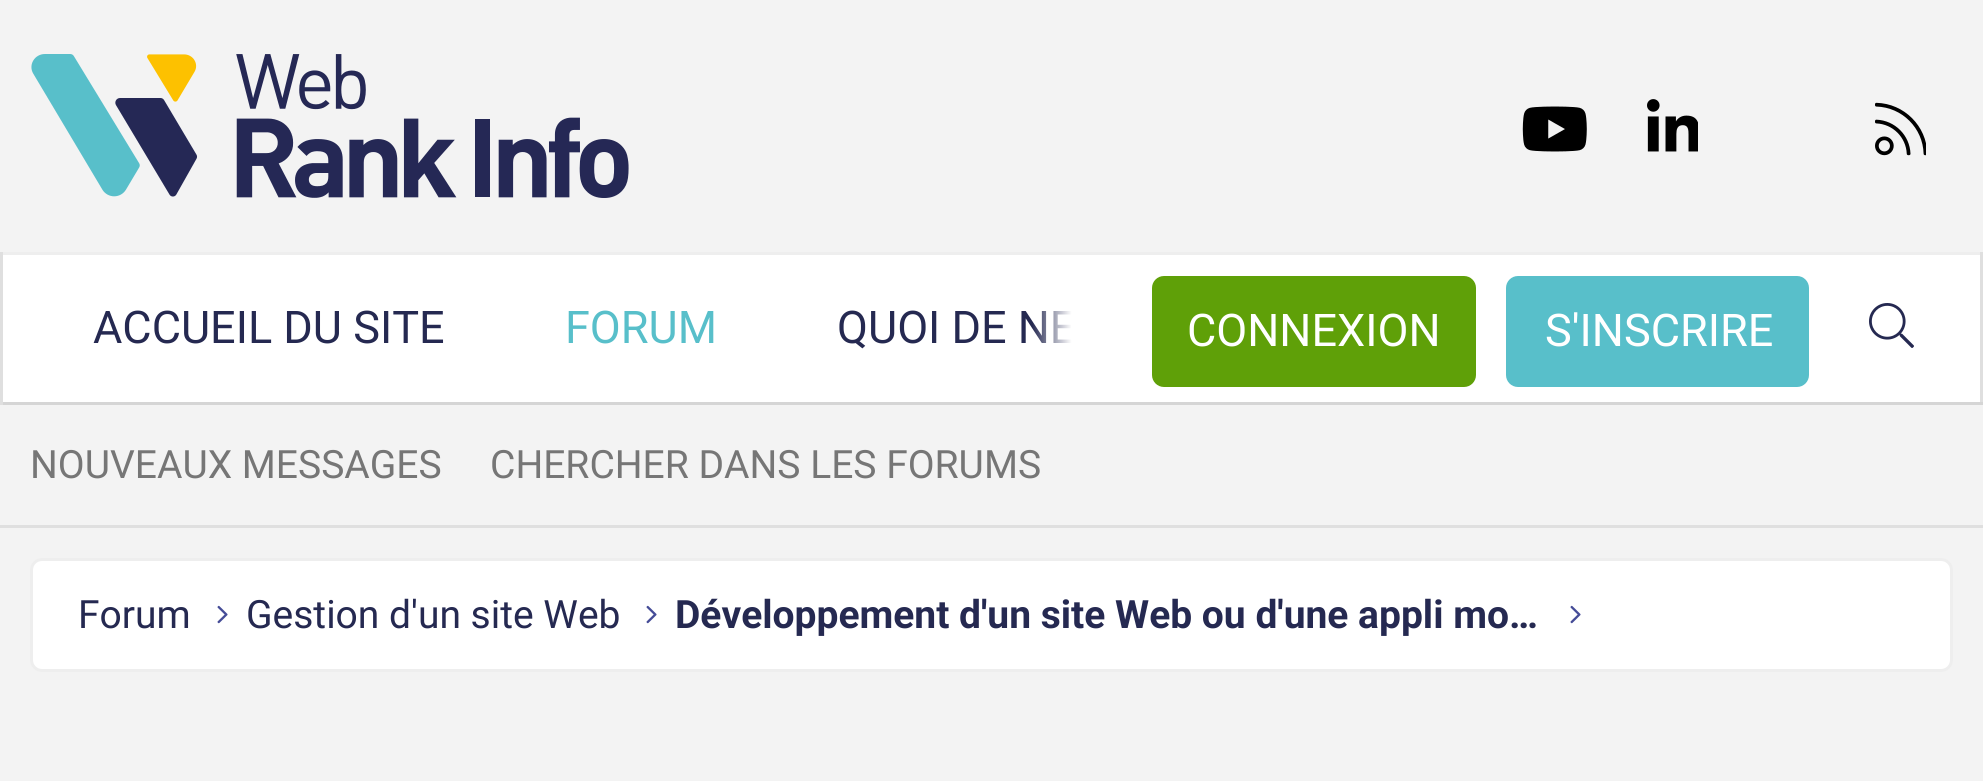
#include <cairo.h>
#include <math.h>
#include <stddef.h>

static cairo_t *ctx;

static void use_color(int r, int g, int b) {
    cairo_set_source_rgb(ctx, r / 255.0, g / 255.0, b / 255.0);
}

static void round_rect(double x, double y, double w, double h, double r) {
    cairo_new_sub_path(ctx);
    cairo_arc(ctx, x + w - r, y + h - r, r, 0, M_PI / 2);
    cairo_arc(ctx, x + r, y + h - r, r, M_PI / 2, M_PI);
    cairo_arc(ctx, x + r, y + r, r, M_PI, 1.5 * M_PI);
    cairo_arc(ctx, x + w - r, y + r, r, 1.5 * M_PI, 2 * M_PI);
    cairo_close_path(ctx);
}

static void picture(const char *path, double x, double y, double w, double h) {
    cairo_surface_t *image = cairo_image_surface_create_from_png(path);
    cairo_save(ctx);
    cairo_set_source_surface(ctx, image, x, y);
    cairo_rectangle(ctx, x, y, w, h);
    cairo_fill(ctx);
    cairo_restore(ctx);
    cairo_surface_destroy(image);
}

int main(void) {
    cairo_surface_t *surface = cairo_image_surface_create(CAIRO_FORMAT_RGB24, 1983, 781);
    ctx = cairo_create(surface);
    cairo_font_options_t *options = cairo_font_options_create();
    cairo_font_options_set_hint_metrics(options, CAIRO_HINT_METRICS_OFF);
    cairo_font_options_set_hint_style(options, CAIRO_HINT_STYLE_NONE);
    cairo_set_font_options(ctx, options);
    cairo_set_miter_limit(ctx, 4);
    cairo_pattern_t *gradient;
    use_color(243, 243, 243);
    cairo_paint(ctx);
    picture("img1.png", 31, 54, 598, 144);
    picture("img2.png", 1522, 106, 65, 46);
    picture("img3.png", 1647, 99, 51, 53);
    picture("img4.png", 1875, 102, 51, 54);
    use_color(255, 255, 255);
    cairo_rectangle(ctx, 3, 255, 1977, 147);
    cairo_fill(ctx);
    use_color(238, 238, 238);
    cairo_rectangle(ctx, 0, 252, 1983, 3);
    cairo_fill(ctx);
    use_color(223, 223, 223);
    cairo_rectangle(ctx, 1980, 252, 3, 153);
    cairo_fill(ctx);
    use_color(213, 213, 213);
    cairo_rectangle(ctx, 0, 402, 1983, 3);
    cairo_fill(ctx);
    use_color(223, 223, 223);
    cairo_rectangle(ctx, 0, 252, 3, 153);
    cairo_fill(ctx);
    cairo_select_font_face(ctx, "Roboto", CAIRO_FONT_SLANT_NORMAL, CAIRO_FONT_WEIGHT_NORMAL);
    cairo_set_font_size(ctx, 45);
    use_color(37, 41, 81);
    cairo_move_to(ctx, 93, 343);
    cairo_show_text(ctx, "ACCUEIL DU SITE");
    use_color(88, 191, 202);
    cairo_move_to(ctx, 565, 343);
    cairo_show_text(ctx, "FORUM");
    use_color(37, 41, 81);
    cairo_move_to(ctx, 837, 343);
    cairo_show_text(ctx, "QUOI DE NE");
    gradient = cairo_pattern_create_linear(1032, 329, 1152, 329);
    cairo_pattern_add_color_stop_rgba(gradient, 0, 1, 1, 1, 0);
    cairo_pattern_add_color_stop_rgba(gradient, 0.33, 1, 1, 1, 1);
    cairo_set_source(ctx, gradient);
    cairo_pattern_destroy(gradient);
    cairo_rectangle(ctx, 1033, 311, 41, 32);
    cairo_fill(ctx);
    use_color(95, 160, 8);
    round_rect(1152, 276, 324, 111, 12);
    cairo_fill(ctx);
    use_color(255, 255, 255);
    cairo_move_to(ctx, 1187, 346);
    cairo_show_text(ctx, "CONNEXION");
    use_color(88, 191, 202);
    round_rect(1506, 276, 303, 111, 12);
    cairo_fill(ctx);
    use_color(255, 255, 255);
    cairo_move_to(ctx, 1545, 346);
    cairo_show_text(ctx, "S'INSCRIRE");
    picture("img5.png", 1869, 303, 45, 45);
    use_color(223, 223, 223);
    cairo_rectangle(ctx, 0, 525, 1983, 3);
    cairo_fill(ctx);
    cairo_set_font_size(ctx, 39);
    use_color(118, 118, 118);
    cairo_move_to(ctx, 30, 478);
    cairo_show_text(ctx, "NOUVEAUX MESSAGES");
    cairo_move_to(ctx, 490, 478);
    cairo_show_text(ctx, "CHERCHER DANS LES FORUMS");
    use_color(255, 255, 255);
    round_rect(31.5, 559.5, 1920, 111, 10.5);
    cairo_fill_preserve(ctx);
    use_color(238, 238, 238);
    cairo_set_line_width(ctx, 3);
    cairo_stroke(ctx);
    use_color(37, 41, 81);
    cairo_move_to(ctx, 78, 628);
    cairo_show_text(ctx, "Forum");
    picture("img6.png", 217, 605, 11, 19);
    cairo_move_to(ctx, 246, 628);
    cairo_show_text(ctx, "Gestion d'un site Web");
    picture("img6.png", 646, 605, 11, 19);
    cairo_select_font_face(ctx, "Roboto", CAIRO_FONT_SLANT_NORMAL, CAIRO_FONT_WEIGHT_BOLD);
    cairo_move_to(ctx, 675, 628);
    cairo_show_text(ctx, "Développement d'un site Web ou d'une appli mo…");
    picture("img6.png", 1570, 605, 11, 19);
    cairo_surface_write_to_png(surface, "result.png");
    cairo_font_options_destroy(options);
    cairo_destroy(ctx);
    cairo_surface_destroy(surface);
    return 0;
}
